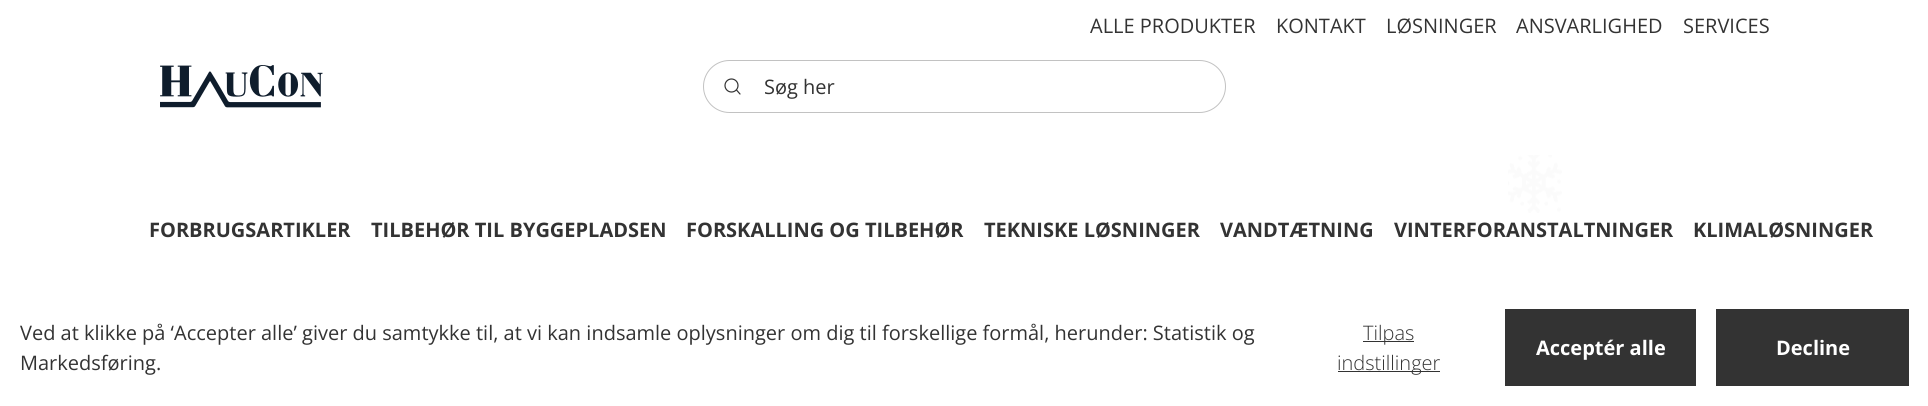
#include <cairo.h>
#include <math.h>
#include <stddef.h>

static cairo_t *ctx;

static void use_color(int r, int g, int b) {
    cairo_set_source_rgb(ctx, r / 255.0, g / 255.0, b / 255.0);
}

static void round_rect(double x, double y, double w, double h, double r) {
    cairo_new_sub_path(ctx);
    cairo_arc(ctx, x + w - r, y + h - r, r, 0, M_PI / 2);
    cairo_arc(ctx, x + r, y + h - r, r, M_PI / 2, M_PI);
    cairo_arc(ctx, x + r, y + r, r, M_PI, 1.5 * M_PI);
    cairo_arc(ctx, x + w - r, y + r, r, 1.5 * M_PI, 2 * M_PI);
    cairo_close_path(ctx);
}

static void picture(const char *path, double x, double y, double w, double h) {
    cairo_surface_t *image = cairo_image_surface_create_from_png(path);
    cairo_save(ctx);
    cairo_set_source_surface(ctx, image, x, y);
    cairo_rectangle(ctx, x, y, w, h);
    cairo_fill(ctx);
    cairo_restore(ctx);
    cairo_surface_destroy(image);
}

int main(void) {
    cairo_surface_t *surface = cairo_image_surface_create(CAIRO_FORMAT_RGB24, 1928, 406);
    ctx = cairo_create(surface);
    cairo_font_options_t *options = cairo_font_options_create();
    cairo_font_options_set_hint_metrics(options, CAIRO_HINT_METRICS_OFF);
    cairo_font_options_set_hint_style(options, CAIRO_HINT_STYLE_NONE);
    cairo_set_font_options(ctx, options);
    cairo_set_miter_limit(ctx, 4);
    use_color(255, 255, 255);
    cairo_paint(ctx);
    cairo_select_font_face(ctx, "Open Sans", CAIRO_FONT_SLANT_NORMAL, CAIRO_FONT_WEIGHT_NORMAL);
    cairo_set_font_size(ctx, 20);
    use_color(51, 51, 51);
    cairo_move_to(ctx, 1090, 33);
    cairo_show_text(ctx, "ALLE PRODUKTER");
    cairo_move_to(ctx, 1276, 33);
    cairo_show_text(ctx, "KONTAKT");
    cairo_move_to(ctx, 1386, 33);
    cairo_show_text(ctx, "LØSNINGER");
    cairo_move_to(ctx, 1516, 33);
    cairo_show_text(ctx, "ANSVARLIGHED");
    cairo_move_to(ctx, 1683, 33);
    cairo_show_text(ctx, "SERVICES");
    picture("img1.png", 160, 65, 163, 43);
    round_rect(703.5, 60.5, 522, 52, 26);
    use_color(194, 194, 194);
    cairo_set_line_width(ctx, 1);
    cairo_stroke(ctx);
    cairo_arc(ctx, 731.5, 85.5, 6.5, 0, 2 * M_PI);
    use_color(51, 51, 51);
    cairo_set_line_width(ctx, 1.2);
    cairo_stroke(ctx);
    cairo_new_path(ctx);
    cairo_move_to(ctx, 740, 94);
    cairo_line_to(ctx, 736.5, 90);
    cairo_set_line_cap(ctx, CAIRO_LINE_CAP_ROUND);
    cairo_set_line_join(ctx, CAIRO_LINE_JOIN_ROUND);
    cairo_stroke(ctx);
    cairo_move_to(ctx, 764, 94);
    cairo_show_text(ctx, "Søg her");
    cairo_select_font_face(ctx, "Open Sans", CAIRO_FONT_SLANT_NORMAL, CAIRO_FONT_WEIGHT_BOLD);
    cairo_move_to(ctx, 149, 237);
    cairo_show_text(ctx, "FORBRUGSARTIKLER");
    cairo_move_to(ctx, 371, 237);
    cairo_show_text(ctx, "TILBEHØR TIL BYGGEPLADSEN");
    cairo_move_to(ctx, 686, 237);
    cairo_show_text(ctx, "FORSKALLING OG TILBEHØR");
    cairo_move_to(ctx, 984, 237);
    cairo_show_text(ctx, "TEKNISKE LØSNINGER");
    cairo_move_to(ctx, 1220, 237);
    cairo_show_text(ctx, "VANDTÆTNING");
    picture("img2.png", 1508, 155, 54, 58);
    cairo_move_to(ctx, 1394, 237);
    cairo_show_text(ctx, "VINTERFORANSTALTNINGER");
    cairo_move_to(ctx, 1693, 237);
    cairo_show_text(ctx, "KLIMALØSNINGER");
    cairo_select_font_face(ctx, "Open Sans", CAIRO_FONT_SLANT_NORMAL, CAIRO_FONT_WEIGHT_NORMAL);
    cairo_move_to(ctx, 20, 340);
    cairo_show_text(ctx, "Ved at klikke på ‘Accepter alle’ giver du samtykke til, at vi kan indsamle oplysninger om dig til forskellige formål, herunder: Statistik og");
    cairo_move_to(ctx, 20, 370);
    cairo_show_text(ctx, "Markedsføring.");
    cairo_rectangle(ctx, 1363, 341, 51, 1);
    cairo_fill(ctx);
    cairo_select_font_face(ctx, "Open Sans Light", CAIRO_FONT_SLANT_NORMAL, CAIRO_FONT_WEIGHT_NORMAL);
    cairo_move_to(ctx, 1363, 340);
    cairo_show_text(ctx, "Tilpas");
    cairo_rectangle(ctx, 1338, 371, 102, 1);
    cairo_fill(ctx);
    cairo_move_to(ctx, 1337, 370);
    cairo_show_text(ctx, "indstillinger");
    cairo_rectangle(ctx, 1505, 309, 191, 77);
    cairo_fill(ctx);
    cairo_select_font_face(ctx, "Open Sans", CAIRO_FONT_SLANT_NORMAL, CAIRO_FONT_WEIGHT_BOLD);
    use_color(255, 255, 255);
    cairo_move_to(ctx, 1536, 355);
    cairo_show_text(ctx, "Acceptér alle");
    use_color(51, 51, 51);
    cairo_rectangle(ctx, 1716, 309, 193, 77);
    cairo_fill(ctx);
    use_color(255, 255, 255);
    cairo_move_to(ctx, 1776, 355);
    cairo_show_text(ctx, "Decline");
    cairo_surface_write_to_png(surface, "result.png");
    cairo_font_options_destroy(options);
    cairo_destroy(ctx);
    cairo_surface_destroy(surface);
    return 0;
}
